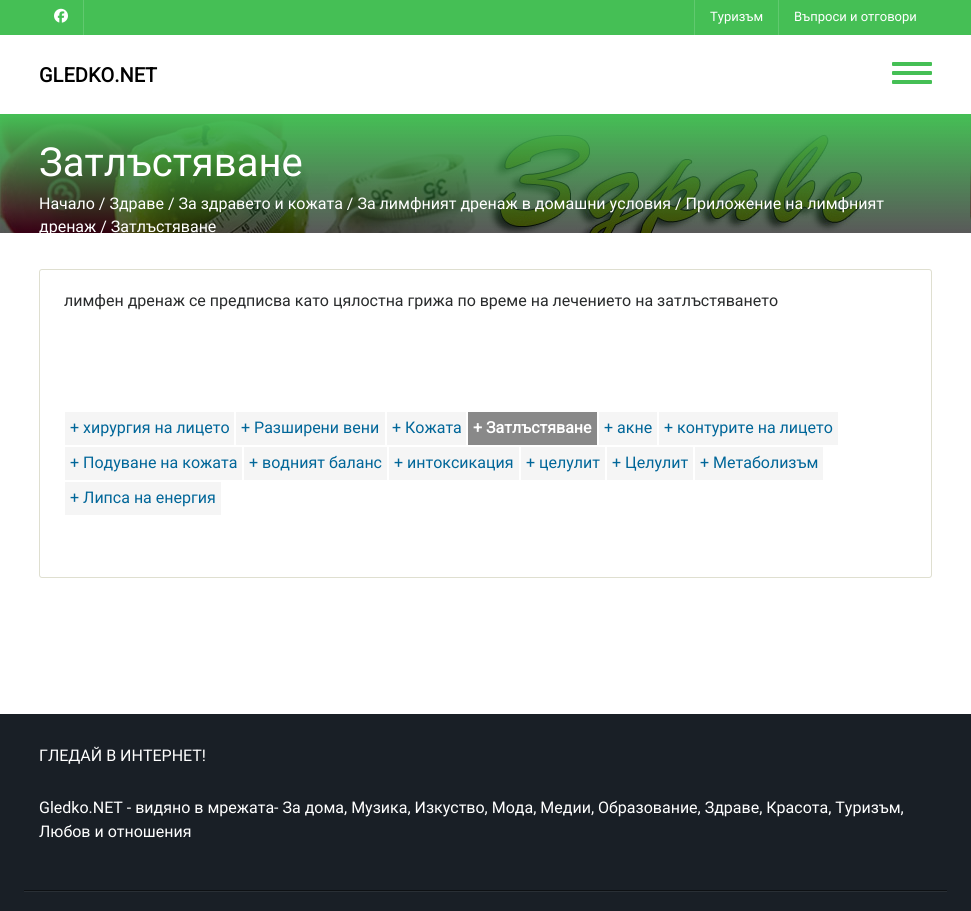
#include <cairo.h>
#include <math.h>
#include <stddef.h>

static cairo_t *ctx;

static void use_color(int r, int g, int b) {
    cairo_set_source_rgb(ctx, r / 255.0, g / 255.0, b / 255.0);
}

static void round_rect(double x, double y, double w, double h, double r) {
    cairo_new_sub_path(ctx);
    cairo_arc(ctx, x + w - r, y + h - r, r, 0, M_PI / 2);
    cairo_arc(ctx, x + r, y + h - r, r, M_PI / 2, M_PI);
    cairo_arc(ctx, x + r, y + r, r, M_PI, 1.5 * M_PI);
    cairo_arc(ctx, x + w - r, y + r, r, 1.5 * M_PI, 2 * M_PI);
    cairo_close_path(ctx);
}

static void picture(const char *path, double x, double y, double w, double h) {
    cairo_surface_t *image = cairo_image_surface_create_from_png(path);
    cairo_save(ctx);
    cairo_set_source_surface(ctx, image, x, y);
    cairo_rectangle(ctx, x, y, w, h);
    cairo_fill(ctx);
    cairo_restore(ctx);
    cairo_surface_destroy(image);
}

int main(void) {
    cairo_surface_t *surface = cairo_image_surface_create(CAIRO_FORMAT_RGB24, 971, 911);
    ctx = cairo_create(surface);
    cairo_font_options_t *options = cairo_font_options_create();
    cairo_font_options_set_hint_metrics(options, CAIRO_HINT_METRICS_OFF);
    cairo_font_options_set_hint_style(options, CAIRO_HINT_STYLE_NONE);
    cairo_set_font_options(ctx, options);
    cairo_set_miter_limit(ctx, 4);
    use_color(255, 255, 255);
    cairo_paint(ctx);
    use_color(69, 191, 85);
    cairo_rectangle(ctx, 0, 0, 971, 35);
    cairo_fill(ctx);
    picture("img1.png", 54, 8, 14, 15);
    cairo_select_font_face(ctx, "Roboto", CAIRO_FONT_SLANT_NORMAL, CAIRO_FONT_WEIGHT_NORMAL);
    cairo_set_font_size(ctx, 13);
    use_color(255, 255, 255);
    cairo_move_to(ctx, 710, 21);
    cairo_show_text(ctx, "Туризъм");
    cairo_move_to(ctx, 794, 21);
    cairo_show_text(ctx, "Въпроси и отговори");
    use_color(97, 201, 111);
    cairo_rectangle(ctx, 778, 0, 1, 35);
    cairo_fill(ctx);
    cairo_rectangle(ctx, 694, 0, 1, 35);
    cairo_fill(ctx);
    cairo_rectangle(ctx, 83, 0, 1, 35);
    cairo_fill(ctx);
    cairo_select_font_face(ctx, "Roboto", CAIRO_FONT_SLANT_NORMAL, CAIRO_FONT_WEIGHT_BOLD);
    cairo_set_font_size(ctx, 20);
    use_color(0, 0, 0);
    cairo_move_to(ctx, 39, 82);
    cairo_show_text(ctx, "GLEDKO.NET");
    use_color(69, 191, 85);
    round_rect(892, 62, 40, 4, 1);
    cairo_fill(ctx);
    round_rect(892, 71, 40, 4, 1);
    cairo_fill(ctx);
    round_rect(892, 80, 40, 4, 1);
    cairo_fill(ctx);
    picture("img2.png", 0, 114, 971, 119);
    cairo_select_font_face(ctx, "Roboto", CAIRO_FONT_SLANT_NORMAL, CAIRO_FONT_WEIGHT_NORMAL);
    cairo_set_font_size(ctx, 40);
    use_color(255, 255, 255);
    cairo_move_to(ctx, 39, 176);
    cairo_show_text(ctx, "Затлъстяване");
    cairo_set_font_size(ctx, 16);
    cairo_move_to(ctx, 39, 209);
    cairo_show_text(ctx, "Начало / Здраве / За здравето и кожата / За лимфният дренаж в домашни условия / Приложение на лимфният");
    cairo_move_to(ctx, 39, 232);
    cairo_show_text(ctx, "дренаж / Затлъстяване");
    round_rect(39.5, 269.5, 892, 308, 2.5);
    use_color(223, 223, 208);
    cairo_set_line_width(ctx, 1);
    cairo_stroke(ctx);
    use_color(41, 43, 44);
    cairo_move_to(ctx, 64, 306);
    cairo_show_text(ctx, "лимфен дренаж се предписва като цялостна грижа по време на лечението на затлъстяването");
    use_color(245, 245, 245);
    cairo_rectangle(ctx, 65, 412, 169, 33);
    cairo_fill(ctx);
    use_color(0, 102, 153);
    cairo_move_to(ctx, 70, 433);
    cairo_show_text(ctx, "+ хирургия на лицето");
    use_color(245, 245, 245);
    cairo_rectangle(ctx, 236, 412, 149, 33);
    cairo_fill(ctx);
    use_color(0, 102, 153);
    cairo_move_to(ctx, 241, 433);
    cairo_show_text(ctx, "+ Разширени вени");
    use_color(245, 245, 245);
    cairo_rectangle(ctx, 387, 412, 79, 33);
    cairo_fill(ctx);
    use_color(0, 102, 153);
    cairo_move_to(ctx, 392, 433);
    cairo_show_text(ctx, "+ Кожата");
    use_color(137, 137, 137);
    cairo_rectangle(ctx, 468, 412, 129, 33);
    cairo_fill(ctx);
    cairo_select_font_face(ctx, "Roboto", CAIRO_FONT_SLANT_NORMAL, CAIRO_FONT_WEIGHT_BOLD);
    use_color(255, 255, 255);
    cairo_move_to(ctx, 473, 433);
    cairo_show_text(ctx, "+ Затлъстяване");
    use_color(245, 245, 245);
    cairo_rectangle(ctx, 599, 412, 58, 33);
    cairo_fill(ctx);
    cairo_select_font_face(ctx, "Roboto", CAIRO_FONT_SLANT_NORMAL, CAIRO_FONT_WEIGHT_NORMAL);
    use_color(0, 102, 153);
    cairo_move_to(ctx, 604, 433);
    cairo_show_text(ctx, "+ акне");
    use_color(245, 245, 245);
    cairo_rectangle(ctx, 659, 412, 179, 33);
    cairo_fill(ctx);
    use_color(0, 102, 153);
    cairo_move_to(ctx, 664, 433);
    cairo_show_text(ctx, "+ контурите на лицето");
    use_color(245, 245, 245);
    cairo_rectangle(ctx, 65, 447, 177, 33);
    cairo_fill(ctx);
    use_color(0, 102, 153);
    cairo_move_to(ctx, 70, 468);
    cairo_show_text(ctx, "+ Подуване на кожата");
    use_color(245, 245, 245);
    cairo_rectangle(ctx, 244, 447, 143, 33);
    cairo_fill(ctx);
    use_color(0, 102, 153);
    cairo_move_to(ctx, 249, 468);
    cairo_show_text(ctx, "+ водният баланс");
    use_color(245, 245, 245);
    cairo_rectangle(ctx, 389, 447, 130, 33);
    cairo_fill(ctx);
    use_color(0, 102, 153);
    cairo_move_to(ctx, 394, 468);
    cairo_show_text(ctx, "+ интоксикация");
    use_color(245, 245, 245);
    cairo_rectangle(ctx, 521, 447, 84, 33);
    cairo_fill(ctx);
    use_color(0, 102, 153);
    cairo_move_to(ctx, 526, 468);
    cairo_show_text(ctx, "+ целулит");
    use_color(245, 245, 245);
    cairo_rectangle(ctx, 607, 447, 86, 33);
    cairo_fill(ctx);
    use_color(0, 102, 153);
    cairo_move_to(ctx, 612, 468);
    cairo_show_text(ctx, "+ Целулит");
    use_color(245, 245, 245);
    cairo_rectangle(ctx, 695, 447, 128, 33);
    cairo_fill(ctx);
    use_color(0, 102, 153);
    cairo_move_to(ctx, 700, 468);
    cairo_show_text(ctx, "+ Метаболизъм");
    use_color(245, 245, 245);
    cairo_rectangle(ctx, 65, 482, 156, 33);
    cairo_fill(ctx);
    use_color(0, 102, 153);
    cairo_move_to(ctx, 70, 503);
    cairo_show_text(ctx, "+ Липса на енергия");
    use_color(25, 31, 38);
    cairo_rectangle(ctx, 0, 714, 971, 197);
    cairo_fill(ctx);
    use_color(41, 47, 53);
    cairo_rectangle(ctx, 24, 891, 923, 1);
    cairo_fill(ctx);
    use_color(13, 16, 19);
    cairo_rectangle(ctx, 24, 890, 923, 1);
    cairo_fill(ctx);
    use_color(255, 255, 255);
    cairo_move_to(ctx, 39, 761);
    cairo_show_text(ctx, "ГЛЕДАЙ В ИНТЕРНЕТ!");
    cairo_move_to(ctx, 39, 813);
    cairo_show_text(ctx, "Gledko.NET - видяно в мрежата- За дома, Музика, Изкуство, Мода, Медии, Образование, Здраве, Красота, Туризъм,");
    cairo_move_to(ctx, 39, 837);
    cairo_show_text(ctx, "Любов и отношения");
    cairo_surface_write_to_png(surface, "result.png");
    cairo_font_options_destroy(options);
    cairo_destroy(ctx);
    cairo_surface_destroy(surface);
    return 0;
}
